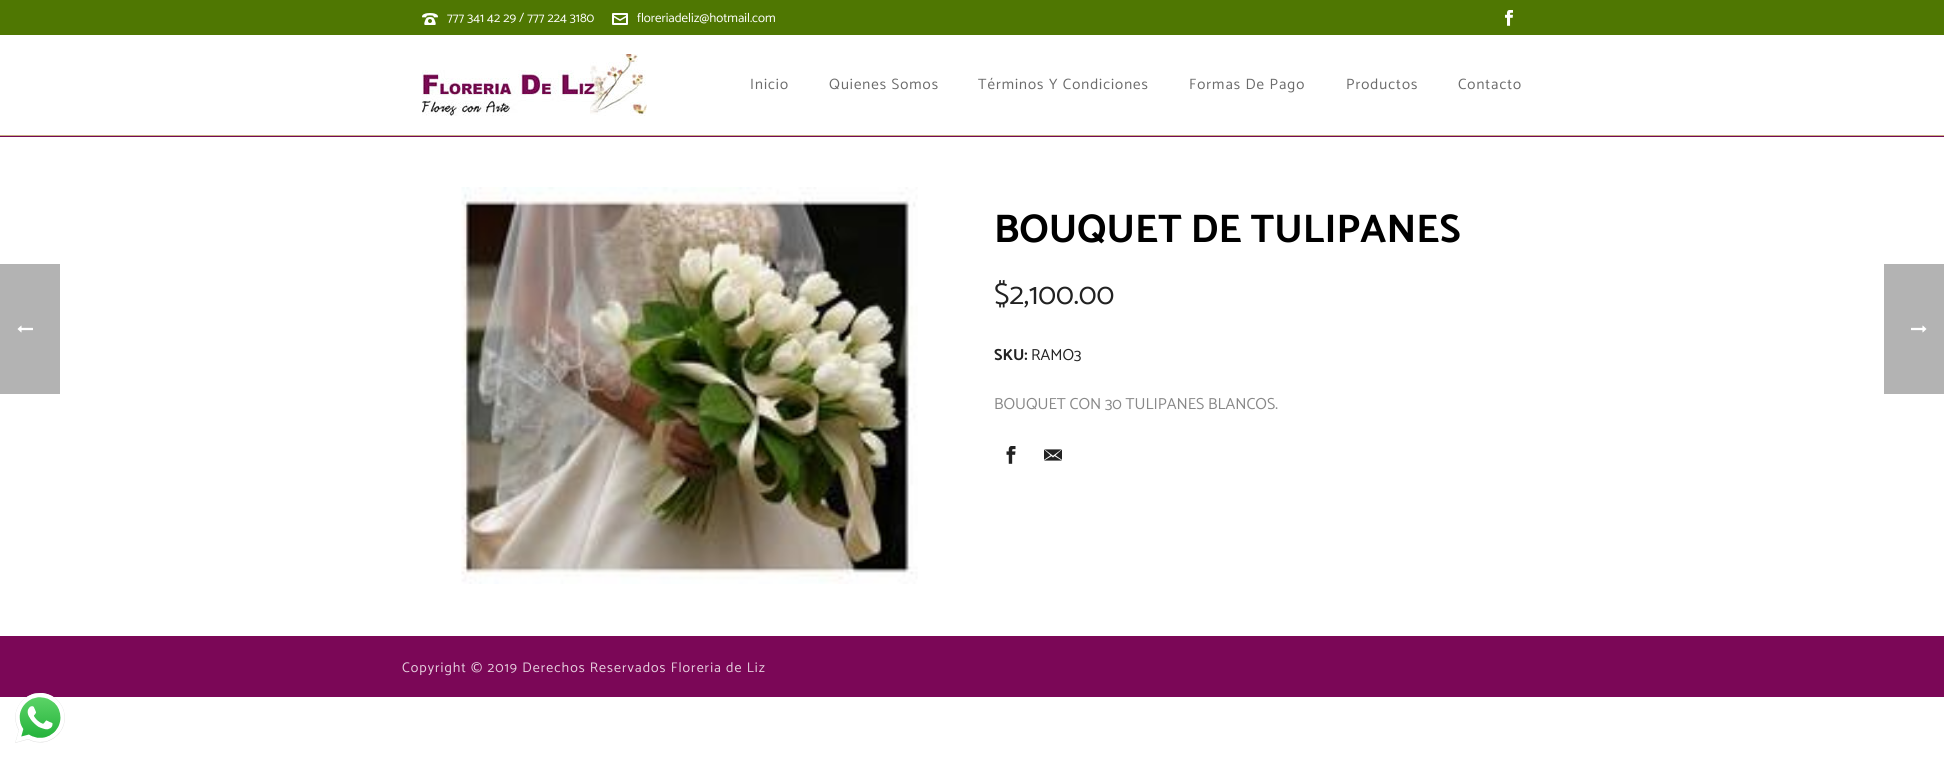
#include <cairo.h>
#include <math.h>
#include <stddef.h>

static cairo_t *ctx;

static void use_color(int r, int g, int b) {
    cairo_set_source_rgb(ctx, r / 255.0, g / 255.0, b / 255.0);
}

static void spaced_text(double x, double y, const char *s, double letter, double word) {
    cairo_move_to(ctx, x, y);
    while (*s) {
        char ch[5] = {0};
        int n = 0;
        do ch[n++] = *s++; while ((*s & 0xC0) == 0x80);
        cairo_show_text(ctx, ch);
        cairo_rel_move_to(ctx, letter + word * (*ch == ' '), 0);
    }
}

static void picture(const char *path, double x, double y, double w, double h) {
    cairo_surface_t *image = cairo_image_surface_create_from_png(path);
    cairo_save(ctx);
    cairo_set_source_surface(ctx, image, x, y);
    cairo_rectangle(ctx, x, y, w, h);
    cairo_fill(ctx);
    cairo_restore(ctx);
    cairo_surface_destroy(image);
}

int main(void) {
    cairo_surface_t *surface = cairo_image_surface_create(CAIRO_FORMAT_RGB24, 1944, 758);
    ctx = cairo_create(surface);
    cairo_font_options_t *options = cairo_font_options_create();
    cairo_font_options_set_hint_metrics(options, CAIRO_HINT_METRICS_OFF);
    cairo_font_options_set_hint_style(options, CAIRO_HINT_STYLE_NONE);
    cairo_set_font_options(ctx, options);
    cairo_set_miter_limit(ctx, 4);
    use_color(255, 255, 255);
    cairo_paint(ctx);
    use_color(179, 179, 179);
    cairo_rectangle(ctx, 0, 264, 60, 130);
    cairo_fill(ctx);
    picture("img1.png", 17, 325, 16, 8);
    use_color(199, 176, 131);
    cairo_rectangle(ctx, 0, 135, 1944, 1);
    cairo_fill(ctx);
    use_color(118, 10, 85);
    cairo_rectangle(ctx, 0, 136, 1944, 1);
    cairo_fill(ctx);
    use_color(79, 119, 2);
    cairo_rectangle(ctx, 0, 0, 1944, 35);
    cairo_fill(ctx);
    picture("img2.png", 422, 13, 16, 12);
    cairo_select_font_face(ctx, "Catamaran", CAIRO_FONT_SLANT_NORMAL, CAIRO_FONT_WEIGHT_NORMAL);
    cairo_set_font_size(ctx, 13);
    use_color(255, 255, 255);
    cairo_move_to(ctx, 447, 22);
    cairo_show_text(ctx, "777 341 42 29 / 777 224 3180");
    picture("img3.png", 612, 13, 16, 12);
    cairo_move_to(ctx, 637, 22);
    cairo_show_text(ctx, "floreriadeliz@hotmail.com");
    picture("img4.png", 1505, 10, 8, 16);
    picture("img5.png", 422, 54, 225, 62);
    cairo_set_font_size(ctx, 15);
    use_color(107, 107, 107);
    spaced_text(750, 89, "Inicio", 1, 0);
    spaced_text(829, 89, "Quienes Somos", 1, 0);
    spaced_text(978, 89, "Términos Y Condiciones", 1, 0);
    spaced_text(1189, 89, "Formas De Pago", 1, 0);
    spaced_text(1346, 89, "Productos", 1, 0);
    spaced_text(1458, 89, "Contacto", 1, 0);
    picture("img6.png", 461, 187, 457, 397);
    cairo_select_font_face(ctx, "Catamaran", CAIRO_FONT_SLANT_NORMAL, CAIRO_FONT_WEIGHT_BOLD);
    cairo_set_font_size(ctx, 40);
    use_color(0, 0, 0);
    cairo_move_to(ctx, 994, 242);
    cairo_show_text(ctx, "BOUQUET DE TULIPANES");
    cairo_select_font_face(ctx, "Catamaran", CAIRO_FONT_SLANT_NORMAL, CAIRO_FONT_WEIGHT_NORMAL);
    cairo_set_font_size(ctx, 30);
    use_color(34, 34, 34);
    cairo_move_to(ctx, 994, 304);
    cairo_show_text(ctx, "$2,100.00");
    cairo_select_font_face(ctx, "Catamaran", CAIRO_FONT_SLANT_NORMAL, CAIRO_FONT_WEIGHT_BOLD);
    cairo_set_font_size(ctx, 16);
    cairo_move_to(ctx, 994, 360);
    cairo_show_text(ctx, "SKU:");
    cairo_select_font_face(ctx, "Catamaran", CAIRO_FONT_SLANT_NORMAL, CAIRO_FONT_WEIGHT_NORMAL);
    cairo_move_to(ctx, 1031, 360);
    cairo_show_text(ctx, "RAMO3");
    use_color(136, 136, 136);
    cairo_move_to(ctx, 994, 409);
    cairo_show_text(ctx, "BOUQUET CON 30 TULIPANES BLANCOS.");
    picture("img7.png", 1006, 446, 10, 18);
    picture("img8.png", 1044, 449, 18, 12);
    use_color(123, 7, 87);
    cairo_rectangle(ctx, 0, 636, 1944, 61);
    cairo_fill(ctx);
    cairo_set_font_size(ctx, 14);
    use_color(229, 205, 221);
    spaced_text(402, 672, "Copyright © 2019 Derechos Reservados Floreria de Liz", 1, 0);
    use_color(179, 179, 179);
    cairo_rectangle(ctx, 1884, 264, 60, 130);
    cairo_fill(ctx);
    picture("img9.png", 1911, 325, 16, 8);
    picture("img10.png", 15, 693, 50, 50);
    cairo_surface_write_to_png(surface, "result.png");
    cairo_font_options_destroy(options);
    cairo_destroy(ctx);
    cairo_surface_destroy(surface);
    return 0;
}
